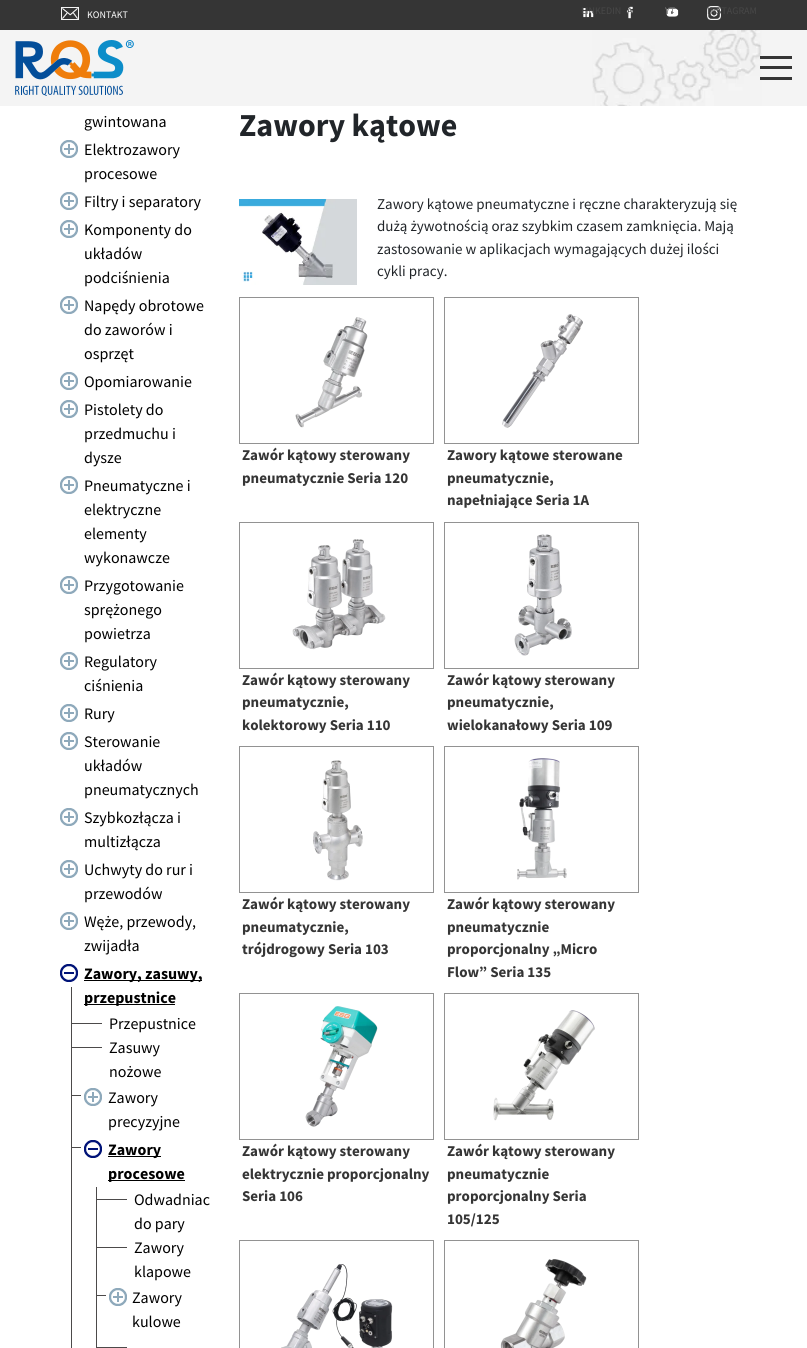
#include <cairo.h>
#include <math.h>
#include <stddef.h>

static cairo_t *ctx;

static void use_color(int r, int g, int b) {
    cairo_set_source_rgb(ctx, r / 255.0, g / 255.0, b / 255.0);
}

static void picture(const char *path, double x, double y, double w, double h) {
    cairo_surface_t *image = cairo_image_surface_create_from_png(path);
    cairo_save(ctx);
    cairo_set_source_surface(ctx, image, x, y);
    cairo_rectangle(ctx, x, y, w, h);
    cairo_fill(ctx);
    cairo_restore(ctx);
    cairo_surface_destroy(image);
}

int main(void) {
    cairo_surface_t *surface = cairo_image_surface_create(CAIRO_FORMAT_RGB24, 807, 1348);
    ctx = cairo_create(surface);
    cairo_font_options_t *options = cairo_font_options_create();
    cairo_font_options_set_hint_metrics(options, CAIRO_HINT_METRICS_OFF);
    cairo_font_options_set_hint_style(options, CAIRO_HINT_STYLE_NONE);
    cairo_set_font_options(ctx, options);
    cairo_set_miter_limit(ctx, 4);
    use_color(255, 255, 255);
    cairo_paint(ctx);
    use_color(53, 53, 53);
    cairo_rectangle(ctx, 0, 0, 807, 30);
    cairo_fill(ctx);
    picture("img1.png", 61, 7, 18, 13);
    cairo_select_font_face(ctx, "Source Sans Pro", CAIRO_FONT_SLANT_NORMAL, CAIRO_FONT_WEIGHT_NORMAL);
    cairo_set_font_size(ctx, 10);
    use_color(255, 255, 255);
    cairo_move_to(ctx, 87, 18);
    cairo_show_text(ctx, "KONTAKT");
    picture("img2.png", 583, 8, 11, 10);
    use_color(71, 71, 71);
    cairo_move_to(ctx, 581, 14);
    cairo_show_text(ctx, "LINKEDIN");
    picture("img3.png", 626, 6, 7, 13);
    cairo_move_to(ctx, 627, 14);
    cairo_show_text(ctx, "A");
    picture("img4.png", 666, 8, 13, 9);
    use_color(128, 128, 128);
    cairo_move_to(ctx, 665, 14);
    cairo_show_text(ctx, "YT");
    picture("img5.png", 707, 6, 14, 14);
    use_color(71, 71, 71);
    cairo_move_to(ctx, 707, 14);
    cairo_show_text(ctx, "INSTAGRAM");
    use_color(244, 244, 244);
    cairo_rectangle(ctx, 0, 30, 807, 76);
    cairo_fill(ctx);
    picture("img6.png", 592, 30, 170, 76);
    picture("img7.png", 15, 40, 119, 56);
    use_color(53, 53, 53);
    cairo_rectangle(ctx, 760, 66, 32, 3);
    cairo_fill(ctx);
    cairo_rectangle(ctx, 760, 56, 32, 3);
    cairo_fill(ctx);
    cairo_rectangle(ctx, 760, 77, 32, 3);
    cairo_fill(ctx);
    cairo_set_font_size(ctx, 16);
    use_color(0, 0, 0);
    cairo_move_to(ctx, 84, 127);
    cairo_show_text(ctx, "gwintowana");
    picture("img8.png", 60, 140, 18, 18);
    cairo_move_to(ctx, 84, 155);
    cairo_show_text(ctx, "Elektrozawory");
    cairo_move_to(ctx, 84, 179);
    cairo_show_text(ctx, "procesowe");
    picture("img8.png", 60, 192, 18, 18);
    cairo_move_to(ctx, 84, 207);
    cairo_show_text(ctx, "Filtry i separatory");
    picture("img8.png", 60, 220, 18, 18);
    cairo_move_to(ctx, 84, 235);
    cairo_show_text(ctx, "Komponenty do");
    cairo_move_to(ctx, 84, 259);
    cairo_show_text(ctx, "układów");
    cairo_move_to(ctx, 84, 283);
    cairo_show_text(ctx, "podciśnienia");
    picture("img8.png", 60, 296, 18, 18);
    cairo_move_to(ctx, 84, 311);
    cairo_show_text(ctx, "Napędy obrotowe");
    cairo_move_to(ctx, 84, 335);
    cairo_show_text(ctx, "do zaworów i");
    cairo_move_to(ctx, 84, 359);
    cairo_show_text(ctx, "osprzęt");
    picture("img8.png", 60, 372, 18, 18);
    cairo_move_to(ctx, 84, 387);
    cairo_show_text(ctx, "Opomiarowanie");
    picture("img8.png", 60, 400, 18, 18);
    cairo_move_to(ctx, 84, 415);
    cairo_show_text(ctx, "Pistolety do");
    cairo_move_to(ctx, 84, 439);
    cairo_show_text(ctx, "przedmuchu i");
    cairo_move_to(ctx, 84, 463);
    cairo_show_text(ctx, "dysze");
    picture("img8.png", 60, 476, 18, 18);
    cairo_move_to(ctx, 84, 491);
    cairo_show_text(ctx, "Pneumatyczne i");
    cairo_move_to(ctx, 84, 515);
    cairo_show_text(ctx, "elektryczne");
    cairo_move_to(ctx, 84, 539);
    cairo_show_text(ctx, "elementy");
    cairo_move_to(ctx, 84, 563);
    cairo_show_text(ctx, "wykonawcze");
    picture("img8.png", 60, 576, 18, 18);
    cairo_move_to(ctx, 84, 591);
    cairo_show_text(ctx, "Przygotowanie");
    cairo_move_to(ctx, 84, 615);
    cairo_show_text(ctx, "sprężonego");
    cairo_move_to(ctx, 84, 639);
    cairo_show_text(ctx, "powietrza");
    picture("img8.png", 60, 652, 18, 18);
    cairo_move_to(ctx, 84, 667);
    cairo_show_text(ctx, "Regulatory");
    cairo_move_to(ctx, 84, 691);
    cairo_show_text(ctx, "ciśnienia");
    picture("img8.png", 60, 704, 18, 18);
    cairo_move_to(ctx, 84, 719);
    cairo_show_text(ctx, "Rury");
    picture("img8.png", 60, 732, 18, 18);
    cairo_move_to(ctx, 84, 747);
    cairo_show_text(ctx, "Sterowanie");
    cairo_move_to(ctx, 84, 771);
    cairo_show_text(ctx, "układów");
    cairo_move_to(ctx, 84, 795);
    cairo_show_text(ctx, "pneumatycznych");
    picture("img8.png", 60, 808, 18, 18);
    cairo_move_to(ctx, 84, 823);
    cairo_show_text(ctx, "Szybkozłącza i");
    cairo_move_to(ctx, 84, 847);
    cairo_show_text(ctx, "multizłącza");
    picture("img8.png", 60, 860, 18, 18);
    cairo_move_to(ctx, 84, 875);
    cairo_show_text(ctx, "Uchwyty do rur i");
    cairo_move_to(ctx, 84, 899);
    cairo_show_text(ctx, "przewodów");
    picture("img8.png", 60, 912, 18, 18);
    cairo_move_to(ctx, 84, 927);
    cairo_show_text(ctx, "Węże, przewody,");
    cairo_move_to(ctx, 84, 951);
    cairo_show_text(ctx, "zwijadła");
    picture("img9.png", 60, 964, 18, 18);
    cairo_rectangle(ctx, 84, 980, 118, 1);
    cairo_fill(ctx);
    cairo_select_font_face(ctx, "Source Sans Pro", CAIRO_FONT_SLANT_NORMAL, CAIRO_FONT_WEIGHT_BOLD);
    cairo_move_to(ctx, 84, 979);
    cairo_show_text(ctx, "Zawory, zasuwy,");
    cairo_rectangle(ctx, 84, 1004, 91, 1);
    cairo_fill(ctx);
    cairo_move_to(ctx, 84, 1003);
    cairo_show_text(ctx, "przepustnice");
    use_color(76, 74, 74);
    cairo_rectangle(ctx, 71, 987, 1, 24);
    cairo_fill(ctx);
    cairo_rectangle(ctx, 71, 1023, 31, 1);
    cairo_fill(ctx);
    cairo_select_font_face(ctx, "Source Sans Pro", CAIRO_FONT_SLANT_NORMAL, CAIRO_FONT_WEIGHT_NORMAL);
    use_color(0, 0, 0);
    cairo_move_to(ctx, 109, 1029);
    cairo_show_text(ctx, "Przepustnice");
    use_color(76, 74, 74);
    cairo_rectangle(ctx, 71, 1047, 31, 1);
    cairo_fill(ctx);
    cairo_rectangle(ctx, 71, 1011, 1, 48);
    cairo_fill(ctx);
    use_color(0, 0, 0);
    cairo_move_to(ctx, 109, 1053);
    cairo_show_text(ctx, "Zasuwy");
    cairo_move_to(ctx, 109, 1077);
    cairo_show_text(ctx, "nożowe");
    use_color(76, 74, 74);
    cairo_rectangle(ctx, 71, 1095, 10, 1);
    cairo_fill(ctx);
    cairo_rectangle(ctx, 71, 1059, 1, 52);
    cairo_fill(ctx);
    picture("img8.png", 84, 1088, 18, 18);
    use_color(0, 0, 0);
    cairo_move_to(ctx, 108, 1103);
    cairo_show_text(ctx, "Zawory");
    cairo_move_to(ctx, 108, 1127);
    cairo_show_text(ctx, "precyzyjne");
    use_color(76, 74, 74);
    cairo_rectangle(ctx, 71, 1147, 10, 1);
    cairo_fill(ctx);
    cairo_rectangle(ctx, 71, 1111, 1, 237);
    cairo_fill(ctx);
    picture("img9.png", 84, 1140, 18, 18);
    use_color(0, 0, 0);
    cairo_rectangle(ctx, 108, 1156, 53, 1);
    cairo_fill(ctx);
    cairo_select_font_face(ctx, "Source Sans Pro", CAIRO_FONT_SLANT_NORMAL, CAIRO_FONT_WEIGHT_BOLD);
    cairo_move_to(ctx, 108, 1155);
    cairo_show_text(ctx, "Zawory");
    cairo_rectangle(ctx, 108, 1180, 77, 1);
    cairo_fill(ctx);
    cairo_move_to(ctx, 108, 1179);
    cairo_show_text(ctx, "procesowe");
    use_color(76, 74, 74);
    cairo_rectangle(ctx, 96, 1199, 31, 1);
    cairo_fill(ctx);
    cairo_rectangle(ctx, 96, 1187, 1, 48);
    cairo_fill(ctx);
    cairo_select_font_face(ctx, "Source Sans Pro", CAIRO_FONT_SLANT_NORMAL, CAIRO_FONT_WEIGHT_NORMAL);
    use_color(0, 0, 0);
    cairo_move_to(ctx, 134, 1205);
    cairo_show_text(ctx, "Odwadniac");
    cairo_move_to(ctx, 134, 1229);
    cairo_show_text(ctx, "do pary");
    use_color(76, 74, 74);
    cairo_rectangle(ctx, 96, 1247, 31, 1);
    cairo_fill(ctx);
    cairo_rectangle(ctx, 96, 1235, 1, 48);
    cairo_fill(ctx);
    use_color(0, 0, 0);
    cairo_move_to(ctx, 134, 1253);
    cairo_show_text(ctx, "Zawory");
    cairo_move_to(ctx, 134, 1277);
    cairo_show_text(ctx, "klapowe");
    use_color(76, 74, 74);
    cairo_rectangle(ctx, 96, 1295, 10, 1);
    cairo_fill(ctx);
    cairo_rectangle(ctx, 96, 1283, 1, 52);
    cairo_fill(ctx);
    picture("img8.png", 109, 1288, 18, 18);
    use_color(0, 0, 0);
    cairo_move_to(ctx, 132, 1303);
    cairo_show_text(ctx, "Zawory");
    cairo_move_to(ctx, 132, 1327);
    cairo_show_text(ctx, "kulowe");
    use_color(76, 74, 74);
    cairo_rectangle(ctx, 96, 1347, 31, 1);
    cairo_fill(ctx);
    cairo_rectangle(ctx, 96, 1335, 1, 13);
    cairo_fill(ctx);
    cairo_select_font_face(ctx, "Source Sans Pro", CAIRO_FONT_SLANT_NORMAL, CAIRO_FONT_WEIGHT_BOLD);
    cairo_set_font_size(ctx, 32);
    use_color(33, 37, 41);
    cairo_move_to(ctx, 239, 136);
    cairo_show_text(ctx, "Zawory kątowe");
    picture("img10.png", 239, 199, 118, 86);
    cairo_select_font_face(ctx, "Source Sans Pro", CAIRO_FONT_SLANT_NORMAL, CAIRO_FONT_WEIGHT_NORMAL);
    cairo_set_font_size(ctx, 15);
    cairo_move_to(ctx, 377, 209);
    cairo_show_text(ctx, "Zawory kątowe pneumatyczne i ręczne charakteryzują się");
    cairo_move_to(ctx, 377, 231);
    cairo_show_text(ctx, "dużą żywotnością oraz szybkim czasem zamknięcia. Mają");
    cairo_move_to(ctx, 377, 254);
    cairo_show_text(ctx, "zastosowanie w aplikacjach wymagających dużej ilości");
    cairo_move_to(ctx, 377, 276);
    cairo_show_text(ctx, "cykli pracy.");
    cairo_rectangle(ctx, 239.5, 297.5, 194, 146);
    use_color(146, 146, 146);
    cairo_set_line_width(ctx, 1);
    cairo_stroke(ctx);
    picture("img11.png", 295, 317, 73, 111);
    cairo_select_font_face(ctx, "Source Sans Pro", CAIRO_FONT_SLANT_NORMAL, CAIRO_FONT_WEIGHT_BOLD);
    use_color(53, 53, 53);
    cairo_move_to(ctx, 242, 460);
    cairo_show_text(ctx, "Zawór kątowy sterowany");
    cairo_move_to(ctx, 242, 483);
    cairo_show_text(ctx, "pneumatycznie Seria 120");
    cairo_rectangle(ctx, 444.5, 297.5, 194, 146);
    use_color(146, 146, 146);
    cairo_stroke(ctx);
    picture("img12.png", 502, 314, 81, 114);
    use_color(53, 53, 53);
    cairo_move_to(ctx, 447, 460);
    cairo_show_text(ctx, "Zawory kątowe sterowane");
    cairo_move_to(ctx, 447, 483);
    cairo_show_text(ctx, "pneumatycznie,");
    cairo_move_to(ctx, 447, 505);
    cairo_show_text(ctx, "napełniające Seria 1A");
    cairo_rectangle(ctx, 239.5, 522.5, 194, 146);
    use_color(146, 146, 146);
    cairo_stroke(ctx);
    picture("img13.png", 292, 539, 94, 111);
    use_color(53, 53, 53);
    cairo_move_to(ctx, 242, 685);
    cairo_show_text(ctx, "Zawór kątowy sterowany");
    cairo_move_to(ctx, 242, 707);
    cairo_show_text(ctx, "pneumatycznie,");
    cairo_move_to(ctx, 242, 730);
    cairo_show_text(ctx, "kolektorowy Seria 110");
    cairo_rectangle(ctx, 444.5, 522.5, 194, 146);
    use_color(146, 146, 146);
    cairo_stroke(ctx);
    picture("img14.png", 514, 534, 58, 122);
    use_color(53, 53, 53);
    cairo_move_to(ctx, 447, 685);
    cairo_show_text(ctx, "Zawór kątowy sterowany");
    cairo_move_to(ctx, 447, 707);
    cairo_show_text(ctx, "pneumatycznie,");
    cairo_move_to(ctx, 447, 730);
    cairo_show_text(ctx, "wielokanałowy Seria 109");
    cairo_rectangle(ctx, 239.5, 746.5, 194, 146);
    use_color(146, 146, 146);
    cairo_stroke(ctx);
    picture("img15.png", 313, 760, 50, 121);
    use_color(53, 53, 53);
    cairo_move_to(ctx, 242, 909);
    cairo_show_text(ctx, "Zawór kątowy sterowany");
    cairo_move_to(ctx, 242, 932);
    cairo_show_text(ctx, "pneumatycznie,");
    cairo_move_to(ctx, 242, 954);
    cairo_show_text(ctx, "trójdrogowy Seria 103");
    cairo_rectangle(ctx, 444.5, 746.5, 194, 146);
    use_color(146, 146, 146);
    cairo_stroke(ctx);
    picture("img16.png", 517, 758, 50, 122);
    use_color(53, 53, 53);
    cairo_move_to(ctx, 447, 909);
    cairo_show_text(ctx, "Zawór kątowy sterowany");
    cairo_move_to(ctx, 447, 932);
    cairo_show_text(ctx, "pneumatycznie");
    cairo_move_to(ctx, 447, 954);
    cairo_show_text(ctx, "proporcjonalny „Micro");
    cairo_move_to(ctx, 447, 977);
    cairo_show_text(ctx, "Flow” Seria 135");
    cairo_rectangle(ctx, 239.5, 993.5, 194, 146);
    use_color(146, 146, 146);
    cairo_stroke(ctx);
    picture("img17.png", 305, 1006, 73, 121);
    use_color(53, 53, 53);
    cairo_move_to(ctx, 242, 1156);
    cairo_show_text(ctx, "Zawór kątowy sterowany");
    cairo_move_to(ctx, 242, 1179);
    cairo_show_text(ctx, "elektrycznie proporcjonalny");
    cairo_move_to(ctx, 242, 1201);
    cairo_show_text(ctx, "Seria 106");
    cairo_rectangle(ctx, 444.5, 993.5, 194, 146);
    use_color(146, 146, 146);
    cairo_stroke(ctx);
    picture("img18.png", 493, 1010, 102, 111);
    use_color(53, 53, 53);
    cairo_move_to(ctx, 447, 1156);
    cairo_show_text(ctx, "Zawór kątowy sterowany");
    cairo_move_to(ctx, 447, 1179);
    cairo_show_text(ctx, "pneumatycznie");
    cairo_move_to(ctx, 447, 1201);
    cairo_show_text(ctx, "proporcjonalny Seria");
    cairo_move_to(ctx, 447, 1224);
    cairo_show_text(ctx, "105/125");
    cairo_rectangle(ctx, 239.5, 1240.5, 194, 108);
    use_color(146, 146, 146);
    cairo_stroke(ctx);
    picture("img19.png", 281, 1264, 112, 84);
    cairo_rectangle(ctx, 444.5, 1240.5, 194, 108);
    cairo_stroke(ctx);
    picture("img20.png", 500, 1259, 87, 89);
    cairo_surface_write_to_png(surface, "result.png");
    cairo_font_options_destroy(options);
    cairo_destroy(ctx);
    cairo_surface_destroy(surface);
    return 0;
}
